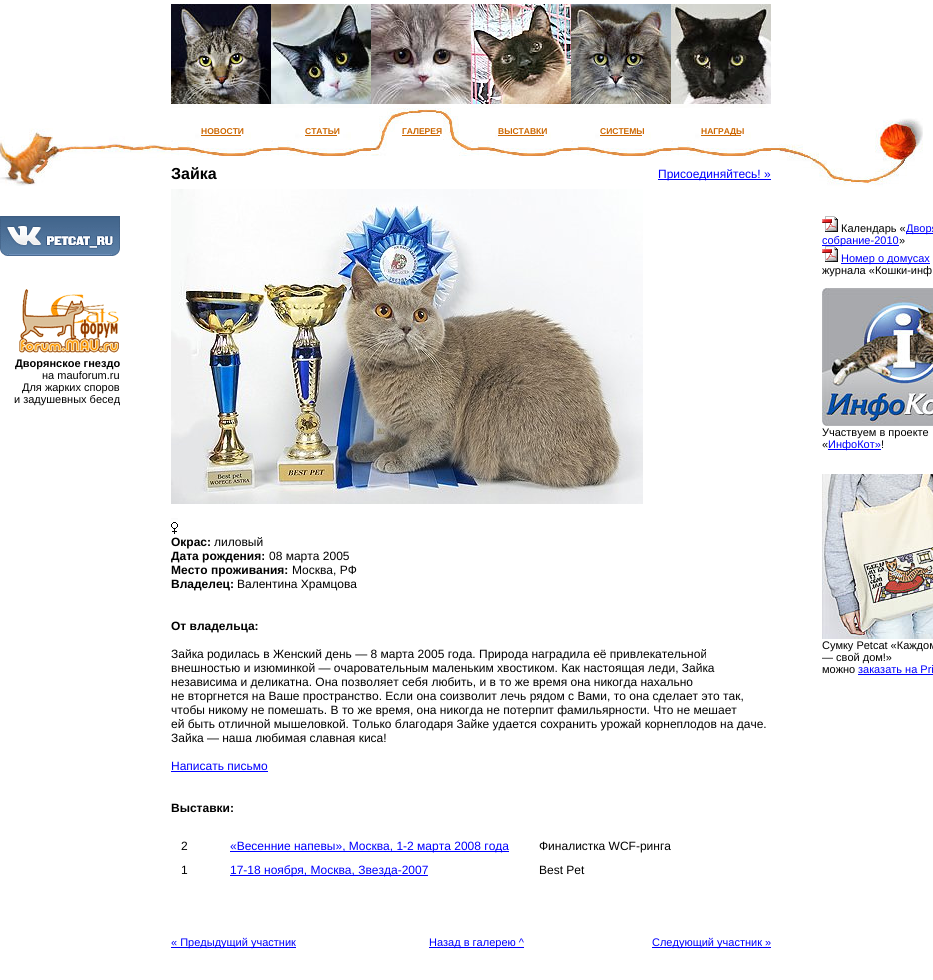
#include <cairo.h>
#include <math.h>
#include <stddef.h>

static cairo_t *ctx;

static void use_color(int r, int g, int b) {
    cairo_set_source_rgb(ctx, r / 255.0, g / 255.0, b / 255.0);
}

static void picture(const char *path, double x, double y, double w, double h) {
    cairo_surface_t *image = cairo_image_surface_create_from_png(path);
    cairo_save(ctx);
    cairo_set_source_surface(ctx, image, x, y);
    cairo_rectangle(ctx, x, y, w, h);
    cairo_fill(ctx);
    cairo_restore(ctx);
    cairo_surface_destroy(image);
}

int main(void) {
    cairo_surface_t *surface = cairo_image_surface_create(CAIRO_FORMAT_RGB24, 933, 980);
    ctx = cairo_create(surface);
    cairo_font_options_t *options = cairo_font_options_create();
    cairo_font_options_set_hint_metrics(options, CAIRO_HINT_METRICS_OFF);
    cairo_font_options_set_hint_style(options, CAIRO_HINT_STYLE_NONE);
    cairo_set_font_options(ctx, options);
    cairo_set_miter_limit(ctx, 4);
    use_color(255, 255, 255);
    cairo_paint(ctx);
    picture("img1.png", 0, 128, 171, 58);
    picture("img2.png", 0, 216, 120, 40);
    picture("img3.png", 19, 289, 100, 64);
    cairo_select_font_face(ctx, "Liberation Sans", CAIRO_FONT_SLANT_NORMAL, CAIRO_FONT_WEIGHT_BOLD);
    cairo_set_font_size(ctx, 11);
    use_color(0, 0, 0);
    cairo_move_to(ctx, 15, 367);
    cairo_show_text(ctx, "Дворянское гнездо");
    cairo_select_font_face(ctx, "Liberation Sans", CAIRO_FONT_SLANT_NORMAL, CAIRO_FONT_WEIGHT_NORMAL);
    cairo_move_to(ctx, 42, 379);
    cairo_show_text(ctx, "на mauforum.ru");
    cairo_move_to(ctx, 22, 391);
    cairo_show_text(ctx, "Для жарких споров");
    cairo_move_to(ctx, 14, 403);
    cairo_show_text(ctx, "и задушевных бесед");
    picture("img4.png", 171, 104, 100, 52);
    picture("img5.png", 171, 4, 100, 100);
    cairo_select_font_face(ctx, "Liberation Sans", CAIRO_FONT_SLANT_NORMAL, CAIRO_FONT_WEIGHT_BOLD);
    cairo_set_font_size(ctx, 8.5);
    use_color(204, 102, 0);
    cairo_move_to(ctx, 201, 134);
    cairo_show_text(ctx, "НОВОСТИ");
    cairo_rectangle(ctx, 201, 135, 40, 1);
    cairo_fill(ctx);
    picture("img4.png", 271, 104, 100, 52);
    picture("img6.png", 271, 4, 100, 100);
    cairo_move_to(ctx, 305, 134);
    cairo_show_text(ctx, "СТАТЬИ");
    cairo_rectangle(ctx, 305, 135, 32, 1);
    cairo_fill(ctx);
    picture("img7.png", 371, 108, 100, 48);
    picture("img8.png", 371, 4, 100, 100);
    cairo_move_to(ctx, 402, 134);
    cairo_show_text(ctx, "ГАЛЕРЕЯ");
    cairo_rectangle(ctx, 402, 135, 38, 1);
    cairo_fill(ctx);
    picture("img4.png", 471, 104, 100, 52);
    picture("img9.png", 471, 4, 100, 100);
    cairo_move_to(ctx, 498, 134);
    cairo_show_text(ctx, "ВЫСТАВКИ");
    cairo_rectangle(ctx, 498, 135, 46, 1);
    cairo_fill(ctx);
    picture("img4.png", 571, 104, 100, 52);
    picture("img10.png", 571, 4, 100, 100);
    cairo_move_to(ctx, 600, 134);
    cairo_show_text(ctx, "СИСТЕМЫ");
    cairo_rectangle(ctx, 600, 135, 42, 1);
    cairo_fill(ctx);
    picture("img4.png", 671, 104, 100, 52);
    picture("img11.png", 671, 4, 100, 100);
    cairo_rectangle(ctx, 701, 135, 40, 1);
    cairo_fill(ctx);
    cairo_move_to(ctx, 701, 134);
    cairo_show_text(ctx, "НАГРАДЫ");
    cairo_set_font_size(ctx, 16);
    use_color(0, 0, 0);
    cairo_move_to(ctx, 171, 179);
    cairo_show_text(ctx, "Зайка");
    use_color(0, 0, 255);
    cairo_rectangle(ctx, 658, 179, 113, 1);
    cairo_fill(ctx);
    cairo_select_font_face(ctx, "Liberation Sans", CAIRO_FONT_SLANT_NORMAL, CAIRO_FONT_WEIGHT_NORMAL);
    cairo_set_font_size(ctx, 12);
    cairo_move_to(ctx, 658, 178);
    cairo_show_text(ctx, "Присоединяйтесь! »");
    picture("img12.png", 171, 189, 472, 315);
    picture("img13.png", 171, 518, 7, 16);
    cairo_select_font_face(ctx, "Liberation Sans", CAIRO_FONT_SLANT_NORMAL, CAIRO_FONT_WEIGHT_BOLD);
    use_color(0, 0, 0);
    cairo_move_to(ctx, 171, 546);
    cairo_show_text(ctx, "Окрас:");
    cairo_select_font_face(ctx, "Liberation Sans", CAIRO_FONT_SLANT_NORMAL, CAIRO_FONT_WEIGHT_NORMAL);
    cairo_move_to(ctx, 214, 546);
    cairo_show_text(ctx, "лиловый");
    cairo_select_font_face(ctx, "Liberation Sans", CAIRO_FONT_SLANT_NORMAL, CAIRO_FONT_WEIGHT_BOLD);
    cairo_move_to(ctx, 171, 560);
    cairo_show_text(ctx, "Дата рождения:");
    cairo_select_font_face(ctx, "Liberation Sans", CAIRO_FONT_SLANT_NORMAL, CAIRO_FONT_WEIGHT_NORMAL);
    cairo_move_to(ctx, 269, 560);
    cairo_show_text(ctx, "08 марта 2005");
    cairo_select_font_face(ctx, "Liberation Sans", CAIRO_FONT_SLANT_NORMAL, CAIRO_FONT_WEIGHT_BOLD);
    cairo_move_to(ctx, 171, 574);
    cairo_show_text(ctx, "Место проживания:");
    cairo_select_font_face(ctx, "Liberation Sans", CAIRO_FONT_SLANT_NORMAL, CAIRO_FONT_WEIGHT_NORMAL);
    cairo_move_to(ctx, 292, 574);
    cairo_show_text(ctx, "Москва, РФ");
    cairo_select_font_face(ctx, "Liberation Sans", CAIRO_FONT_SLANT_NORMAL, CAIRO_FONT_WEIGHT_BOLD);
    cairo_move_to(ctx, 171, 588);
    cairo_show_text(ctx, "Владелец:");
    cairo_select_font_face(ctx, "Liberation Sans", CAIRO_FONT_SLANT_NORMAL, CAIRO_FONT_WEIGHT_NORMAL);
    cairo_move_to(ctx, 237, 588);
    cairo_show_text(ctx, "Валентина Храмцова");
    cairo_select_font_face(ctx, "Liberation Sans", CAIRO_FONT_SLANT_NORMAL, CAIRO_FONT_WEIGHT_BOLD);
    cairo_move_to(ctx, 171, 630);
    cairo_show_text(ctx, "От владельца:");
    cairo_select_font_face(ctx, "Liberation Sans", CAIRO_FONT_SLANT_NORMAL, CAIRO_FONT_WEIGHT_NORMAL);
    cairo_move_to(ctx, 171, 658);
    cairo_show_text(ctx, "Зайка родилась в Женский день — 8 марта 2005 года. Природа наградила её привлекательной");
    cairo_move_to(ctx, 171, 672);
    cairo_show_text(ctx, "внешностью и изюминкой — очаровательным маленьким хвостиком. Как настоящая леди, Зайка");
    cairo_move_to(ctx, 171, 686);
    cairo_show_text(ctx, "независима и деликатна. Она позволяет себя любить, и в то же время она никогда нахально");
    cairo_move_to(ctx, 171, 700);
    cairo_show_text(ctx, "не вторгнется на Ваше пространство. Если она соизволит лечь рядом с Вами, то она сделает это так,");
    cairo_move_to(ctx, 171, 714);
    cairo_show_text(ctx, "чтобы никому не помешать. В то же время, она никогда не потерпит фамильярности. Что не мешает");
    cairo_move_to(ctx, 171, 728);
    cairo_show_text(ctx, "ей быть отличной мышеловкой. Только благодаря Зайке удается сохранить урожай корнеплодов на даче.");
    cairo_move_to(ctx, 171, 742);
    cairo_show_text(ctx, "Зайка — наша любимая славная киса!");
    use_color(0, 0, 255);
    cairo_move_to(ctx, 171, 770);
    cairo_show_text(ctx, "Написать письмо");
    cairo_rectangle(ctx, 171, 771, 97, 1);
    cairo_fill(ctx);
    cairo_select_font_face(ctx, "Liberation Sans", CAIRO_FONT_SLANT_NORMAL, CAIRO_FONT_WEIGHT_BOLD);
    use_color(0, 0, 0);
    cairo_move_to(ctx, 171, 812);
    cairo_show_text(ctx, "Выставки:");
    cairo_select_font_face(ctx, "Liberation Sans", CAIRO_FONT_SLANT_NORMAL, CAIRO_FONT_WEIGHT_NORMAL);
    cairo_move_to(ctx, 181, 850);
    cairo_show_text(ctx, "2");
    use_color(0, 0, 255);
    cairo_rectangle(ctx, 230, 851, 279, 1);
    cairo_fill(ctx);
    cairo_move_to(ctx, 230, 850);
    cairo_show_text(ctx, "«Весенние напевы», Москва, 1-2 марта 2008 года");
    use_color(0, 0, 0);
    cairo_move_to(ctx, 539, 850);
    cairo_show_text(ctx, "Финалистка WCF-ринга");
    cairo_move_to(ctx, 181, 874);
    cairo_show_text(ctx, "1");
    use_color(0, 0, 255);
    cairo_rectangle(ctx, 230, 875, 198, 1);
    cairo_fill(ctx);
    cairo_move_to(ctx, 230, 874);
    cairo_show_text(ctx, "17-18 ноября, Москва, Звезда-2007");
    use_color(0, 0, 0);
    cairo_move_to(ctx, 539, 874);
    cairo_show_text(ctx, "Best Pet");
    use_color(0, 0, 255);
    cairo_rectangle(ctx, 171, 947, 125, 1);
    cairo_fill(ctx);
    cairo_set_font_size(ctx, 11);
    cairo_move_to(ctx, 171, 946);
    cairo_show_text(ctx, "« Предыдущий участник");
    cairo_rectangle(ctx, 429, 947, 95, 1);
    cairo_fill(ctx);
    cairo_move_to(ctx, 429, 946);
    cairo_show_text(ctx, "Назад в галерею ^");
    cairo_rectangle(ctx, 652, 947, 119, 1);
    cairo_fill(ctx);
    cairo_move_to(ctx, 652, 946);
    cairo_show_text(ctx, "Следующий участник »");
    picture("img14.png", 771, 118, 152, 69);
    picture("img15.png", 822, 216, 16, 16);
    use_color(0, 0, 0);
    cairo_move_to(ctx, 841, 232);
    cairo_show_text(ctx, "Календарь «");
    use_color(0, 0, 255);
    cairo_rectangle(ctx, 906, 233, 27, 1);
    cairo_fill(ctx);
    cairo_move_to(ctx, 906, 232);
    cairo_show_text(ctx, "Дворя");
    cairo_rectangle(ctx, 822, 245, 77, 1);
    cairo_fill(ctx);
    cairo_move_to(ctx, 822, 244);
    cairo_show_text(ctx, "собрание-2010");
    use_color(0, 0, 0);
    cairo_move_to(ctx, 899, 244);
    cairo_show_text(ctx, "»");
    picture("img15.png", 822, 246, 16, 16);
    use_color(0, 0, 255);
    cairo_rectangle(ctx, 841, 263, 89, 1);
    cairo_fill(ctx);
    cairo_move_to(ctx, 841, 262);
    cairo_show_text(ctx, "Номер о домусах");
    use_color(0, 0, 0);
    cairo_move_to(ctx, 822, 274);
    cairo_show_text(ctx, "журнала «Кошки-инф");
    picture("img16.png", 822, 288, 111, 138);
    cairo_move_to(ctx, 822, 436);
    cairo_show_text(ctx, "Участвуем в проекте");
    cairo_move_to(ctx, 822, 448);
    cairo_show_text(ctx, "«");
    use_color(0, 0, 255);
    cairo_rectangle(ctx, 828, 449, 53, 1);
    cairo_fill(ctx);
    cairo_move_to(ctx, 828, 448);
    cairo_show_text(ctx, "ИнфоКот»");
    use_color(0, 0, 0);
    cairo_move_to(ctx, 881, 448);
    cairo_show_text(ctx, "!");
    picture("img17.png", 822, 474, 111, 165);
    cairo_move_to(ctx, 822, 649);
    cairo_show_text(ctx, "Сумку Petcat «Каждом");
    cairo_move_to(ctx, 822, 661);
    cairo_show_text(ctx, "— свой дом!»");
    cairo_move_to(ctx, 822, 673);
    cairo_show_text(ctx, "можно");
    use_color(0, 0, 255);
    cairo_move_to(ctx, 858, 673);
    cairo_show_text(ctx, "заказать на Pri");
    cairo_rectangle(ctx, 858, 674, 75, 1);
    cairo_fill(ctx);
    cairo_surface_write_to_png(surface, "result.png");
    cairo_font_options_destroy(options);
    cairo_destroy(ctx);
    cairo_surface_destroy(surface);
    return 0;
}
